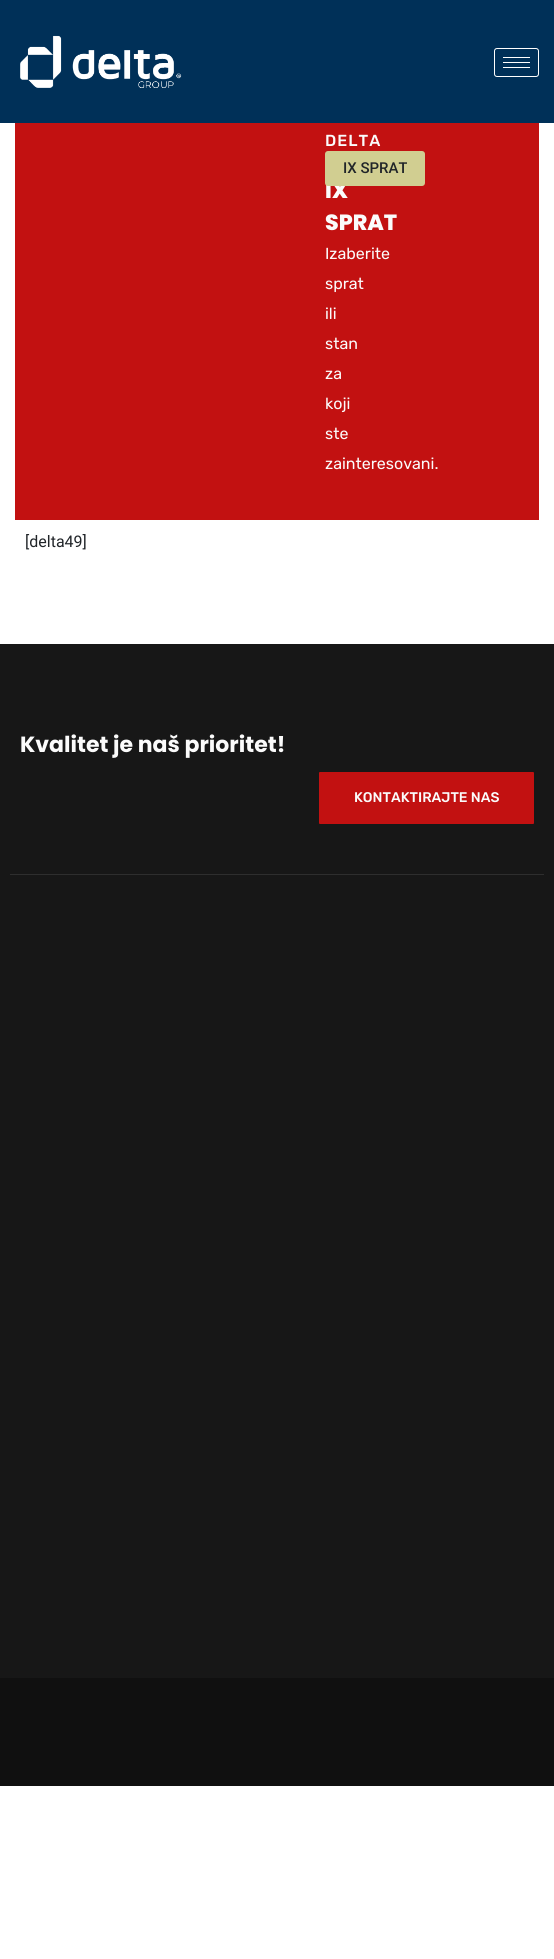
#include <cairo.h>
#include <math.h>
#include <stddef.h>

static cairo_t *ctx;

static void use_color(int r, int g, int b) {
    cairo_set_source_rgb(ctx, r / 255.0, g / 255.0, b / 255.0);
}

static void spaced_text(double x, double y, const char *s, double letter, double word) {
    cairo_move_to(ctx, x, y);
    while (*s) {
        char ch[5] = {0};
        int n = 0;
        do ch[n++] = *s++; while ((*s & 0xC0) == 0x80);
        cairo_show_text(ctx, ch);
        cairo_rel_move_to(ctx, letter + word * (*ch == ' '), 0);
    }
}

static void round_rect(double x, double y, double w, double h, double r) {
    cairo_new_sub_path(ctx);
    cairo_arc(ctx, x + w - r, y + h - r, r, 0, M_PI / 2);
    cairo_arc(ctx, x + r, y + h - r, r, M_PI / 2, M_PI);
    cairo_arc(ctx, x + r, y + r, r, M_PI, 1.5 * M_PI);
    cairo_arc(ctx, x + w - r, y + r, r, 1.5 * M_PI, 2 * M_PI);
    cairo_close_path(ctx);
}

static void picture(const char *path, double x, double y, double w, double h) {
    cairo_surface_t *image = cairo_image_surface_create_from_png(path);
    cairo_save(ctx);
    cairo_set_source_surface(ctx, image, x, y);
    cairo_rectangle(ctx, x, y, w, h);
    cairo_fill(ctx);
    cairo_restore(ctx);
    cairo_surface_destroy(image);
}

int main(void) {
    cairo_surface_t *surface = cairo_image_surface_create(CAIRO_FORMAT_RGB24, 554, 1959);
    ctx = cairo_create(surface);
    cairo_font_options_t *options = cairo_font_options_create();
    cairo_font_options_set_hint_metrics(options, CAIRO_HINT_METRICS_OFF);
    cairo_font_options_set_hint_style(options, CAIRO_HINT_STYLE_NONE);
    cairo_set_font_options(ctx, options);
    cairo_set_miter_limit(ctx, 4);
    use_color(255, 255, 255);
    cairo_paint(ctx);
    use_color(0, 48, 88);
    cairo_rectangle(ctx, 0, 0, 554, 123);
    cairo_fill(ctx);
    picture("img1.png", 20, 35, 162, 53);
    round_rect(494.5, 48.5, 44, 28, 2.5);
    use_color(255, 255, 255);
    cairo_set_line_width(ctx, 1);
    cairo_stroke(ctx);
    cairo_rectangle(ctx, 503, 57, 27, 1);
    cairo_fill(ctx);
    cairo_rectangle(ctx, 503, 62, 27, 1);
    cairo_fill(ctx);
    cairo_rectangle(ctx, 503, 67, 27, 1);
    cairo_fill(ctx);
    use_color(194, 17, 17);
    cairo_rectangle(ctx, 15, 123, 524, 397);
    cairo_fill(ctx);
    cairo_select_font_face(ctx, "Rubik Medium", CAIRO_FONT_SLANT_NORMAL, CAIRO_FONT_WEIGHT_NORMAL);
    cairo_set_font_size(ctx, 16);
    use_color(251, 251, 251);
    spaced_text(325, 146, "DELTA", 1, 0);
    cairo_select_font_face(ctx, "Poppins ExtraBold", CAIRO_FONT_SLANT_NORMAL, CAIRO_FONT_WEIGHT_NORMAL);
    cairo_set_font_size(ctx, 22);
    cairo_move_to(ctx, 325, 198);
    cairo_show_text(ctx, "IX");
    cairo_move_to(ctx, 325, 230);
    cairo_show_text(ctx, "SPRAT");
    cairo_select_font_face(ctx, "Rubik", CAIRO_FONT_SLANT_NORMAL, CAIRO_FONT_WEIGHT_NORMAL);
    cairo_set_font_size(ctx, 16);
    cairo_move_to(ctx, 325, 259);
    cairo_show_text(ctx, "Izaberite");
    cairo_move_to(ctx, 325, 289);
    cairo_show_text(ctx, "sprat");
    cairo_move_to(ctx, 325, 319);
    cairo_show_text(ctx, "ili");
    cairo_move_to(ctx, 325, 349);
    cairo_show_text(ctx, "stan");
    cairo_move_to(ctx, 325, 379);
    cairo_show_text(ctx, "za");
    cairo_move_to(ctx, 325, 409);
    cairo_show_text(ctx, "koji");
    cairo_move_to(ctx, 325, 439);
    cairo_show_text(ctx, "ste");
    cairo_move_to(ctx, 325, 469);
    cairo_show_text(ctx, "zainteresovani.");
    use_color(209, 206, 145);
    round_rect(325, 151, 100, 35, 3);
    cairo_fill(ctx);
    cairo_select_font_face(ctx, "Roboto Medium", CAIRO_FONT_SLANT_NORMAL, CAIRO_FONT_WEIGHT_NORMAL);
    cairo_set_font_size(ctx, 15);
    use_color(33, 37, 41);
    cairo_move_to(ctx, 343, 173);
    cairo_show_text(ctx, "IX SPRAT");
    cairo_select_font_face(ctx, "Roboto", CAIRO_FONT_SLANT_NORMAL, CAIRO_FONT_WEIGHT_NORMAL);
    cairo_set_font_size(ctx, 16);
    cairo_move_to(ctx, 25, 547);
    cairo_show_text(ctx, "[delta49]");
    use_color(23, 23, 23);
    cairo_rectangle(ctx, 0, 644, 554, 1034);
    cairo_fill(ctx);
    use_color(46, 46, 46);
    cairo_rectangle(ctx, 10, 874, 534, 1);
    cairo_fill(ctx);
    cairo_select_font_face(ctx, "Poppins", CAIRO_FONT_SLANT_NORMAL, CAIRO_FONT_WEIGHT_BOLD);
    cairo_set_font_size(ctx, 22);
    use_color(251, 251, 251);
    cairo_move_to(ctx, 20, 752);
    cairo_show_text(ctx, "Kvalitet je naš prioritet!");
    use_color(194, 17, 17);
    round_rect(319, 772, 215, 52, 1);
    cairo_fill(ctx);
    cairo_select_font_face(ctx, "Rubik Medium", CAIRO_FONT_SLANT_NORMAL, CAIRO_FONT_WEIGHT_NORMAL);
    cairo_set_font_size(ctx, 14);
    use_color(251, 251, 251);
    cairo_move_to(ctx, 354, 802);
    cairo_show_text(ctx, "KONTAKTIRAJTE NAS");
    use_color(16, 16, 16);
    cairo_rectangle(ctx, 0, 1678, 554, 108);
    cairo_fill(ctx);
    cairo_surface_write_to_png(surface, "result.png");
    cairo_font_options_destroy(options);
    cairo_destroy(ctx);
    cairo_surface_destroy(surface);
    return 0;
}
